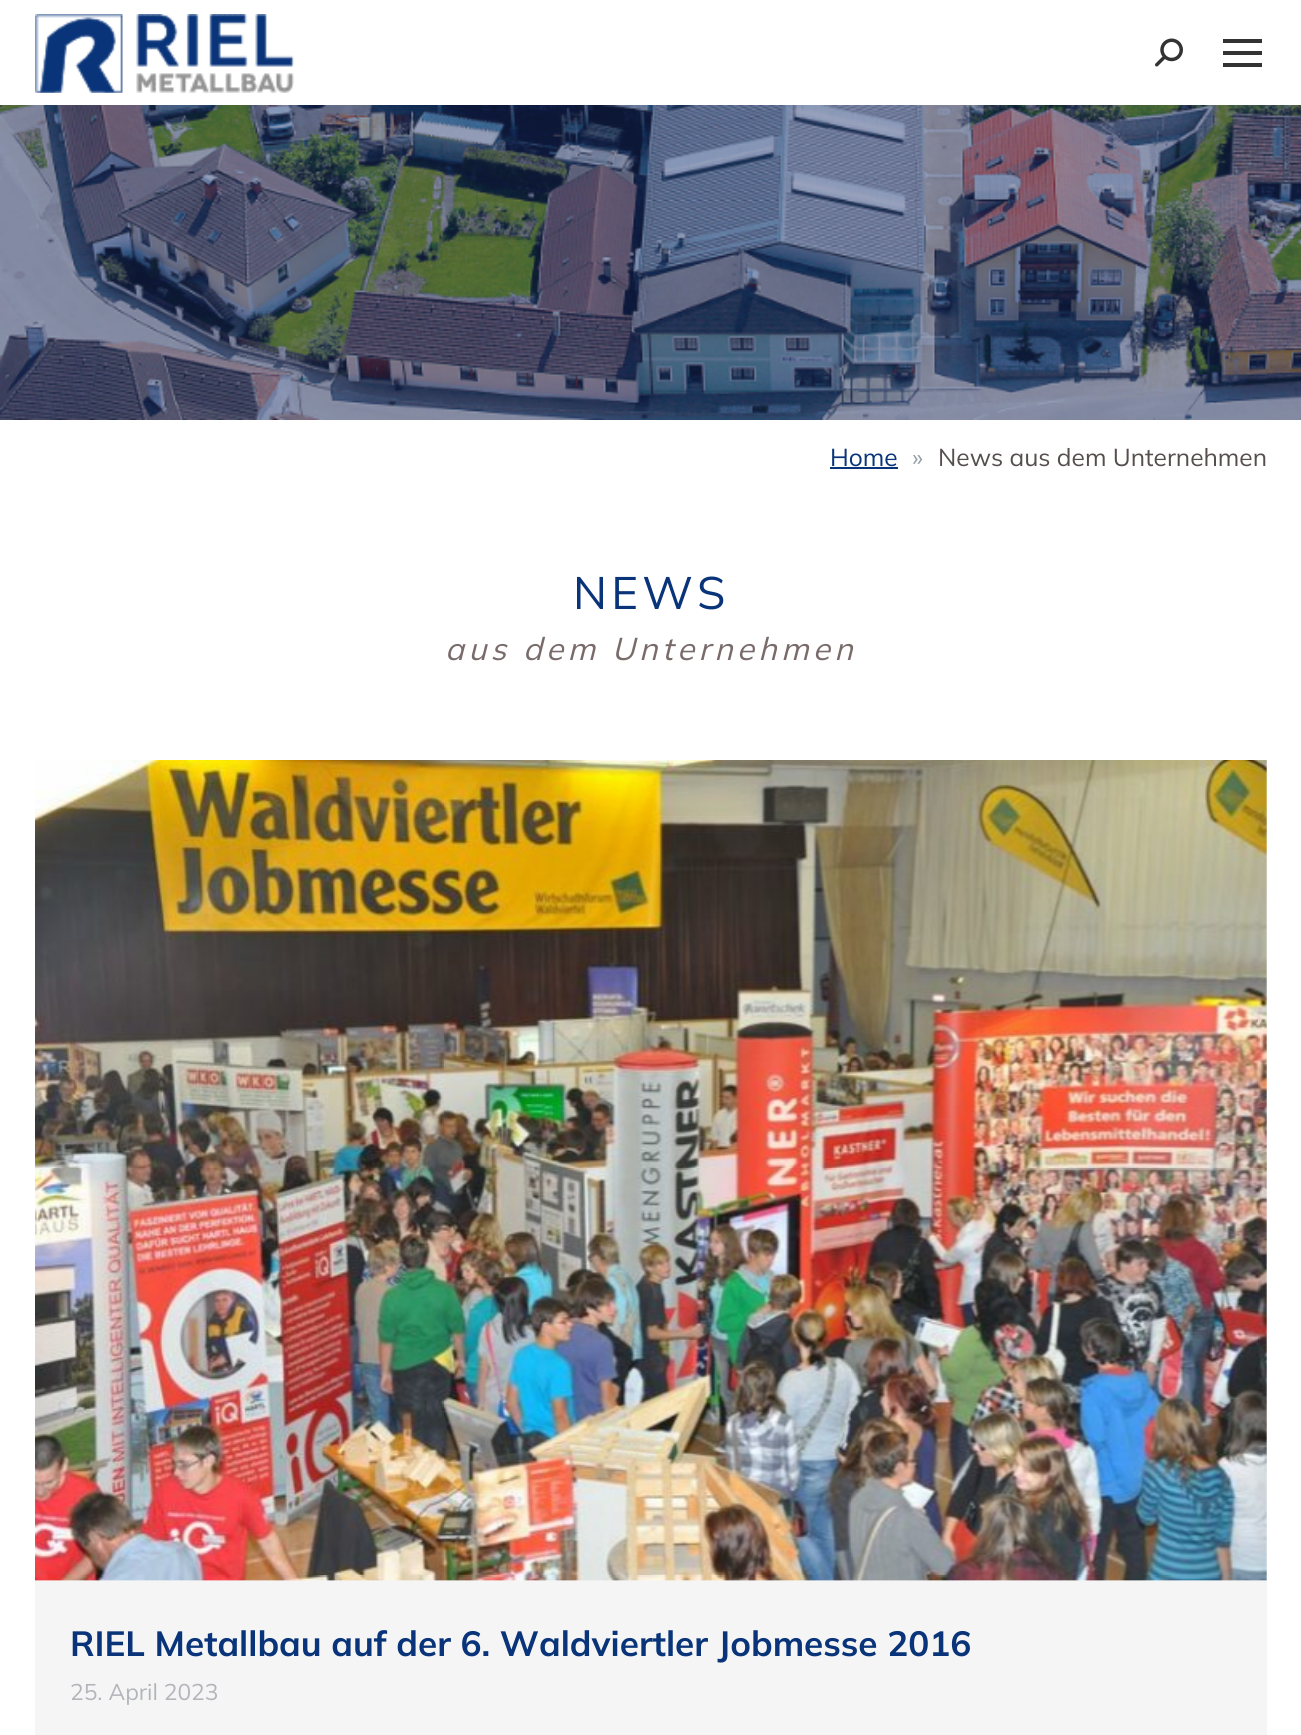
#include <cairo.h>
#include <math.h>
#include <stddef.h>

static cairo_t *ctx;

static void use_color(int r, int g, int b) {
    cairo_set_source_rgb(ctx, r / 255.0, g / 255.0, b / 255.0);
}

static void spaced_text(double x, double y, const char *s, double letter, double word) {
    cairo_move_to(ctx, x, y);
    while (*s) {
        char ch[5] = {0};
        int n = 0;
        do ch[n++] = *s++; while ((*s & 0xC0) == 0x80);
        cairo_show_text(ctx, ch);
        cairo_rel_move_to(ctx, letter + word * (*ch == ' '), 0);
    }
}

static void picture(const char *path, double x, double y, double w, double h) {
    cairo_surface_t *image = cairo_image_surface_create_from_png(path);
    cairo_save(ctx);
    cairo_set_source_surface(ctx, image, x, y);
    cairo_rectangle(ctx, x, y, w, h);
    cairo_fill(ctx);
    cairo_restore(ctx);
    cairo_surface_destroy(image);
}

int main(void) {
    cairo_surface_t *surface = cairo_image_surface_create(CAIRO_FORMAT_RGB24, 1301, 1735);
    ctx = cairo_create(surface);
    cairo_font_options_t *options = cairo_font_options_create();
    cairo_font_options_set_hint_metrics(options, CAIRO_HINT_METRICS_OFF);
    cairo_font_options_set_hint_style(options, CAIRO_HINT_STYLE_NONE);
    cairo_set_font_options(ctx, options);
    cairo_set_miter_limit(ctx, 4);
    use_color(255, 255, 255);
    cairo_paint(ctx);
    picture("img1.png", 35, 14, 259, 79);
    picture("img2.png", 1155, 38, 28, 29);
    use_color(51, 51, 51);
    cairo_rectangle(ctx, 1223, 39, 39, 4);
    cairo_fill(ctx);
    cairo_rectangle(ctx, 1223, 51, 39, 4);
    cairo_fill(ctx);
    cairo_rectangle(ctx, 1223, 63, 39, 4);
    cairo_fill(ctx);
    picture("img3.png", 0, 105, 1301, 315);
    cairo_select_font_face(ctx, "Mulish", CAIRO_FONT_SLANT_NORMAL, CAIRO_FONT_WEIGHT_NORMAL);
    cairo_set_font_size(ctx, 24.5);
    use_color(9, 52, 121);
    cairo_move_to(ctx, 830, 466);
    cairo_show_text(ctx, "Home");
    cairo_rectangle(ctx, 830, 467, 68, 2);
    cairo_fill(ctx);
    use_color(149, 159, 165);
    cairo_move_to(ctx, 912, 466);
    cairo_show_text(ctx, "»");
    use_color(86, 77, 77);
    cairo_move_to(ctx, 938, 466);
    cairo_show_text(ctx, "News aus dem Unternehmen");
    cairo_set_font_size(ctx, 45.5);
    use_color(9, 52, 121);
    spaced_text(573, 609, "NEWS", 4.25, 0);
    cairo_select_font_face(ctx, "Mulish", CAIRO_FONT_SLANT_ITALIC, CAIRO_FONT_WEIGHT_NORMAL);
    cairo_set_font_size(ctx, 31.5);
    use_color(122, 107, 107);
    spaced_text(445, 660, "aus dem Unternehmen", 4.25, 0);
    use_color(245, 245, 245);
    cairo_rectangle(ctx, 35, 760, 1232, 975);
    cairo_fill(ctx);
    picture("img4.png", 35, 760, 1232, 821);
    cairo_select_font_face(ctx, "Mulish", CAIRO_FONT_SLANT_NORMAL, CAIRO_FONT_WEIGHT_BOLD);
    cairo_set_font_size(ctx, 35);
    use_color(9, 52, 121);
    cairo_move_to(ctx, 70, 1656);
    cairo_show_text(ctx, "RIEL Metallbau auf der 6. Waldviertler Jobmesse 2016");
    cairo_select_font_face(ctx, "Mulish", CAIRO_FONT_SLANT_NORMAL, CAIRO_FONT_WEIGHT_NORMAL);
    cairo_set_font_size(ctx, 22.75);
    use_color(180, 181, 187);
    cairo_move_to(ctx, 70, 1700);
    cairo_show_text(ctx, "25. April 2023");
    cairo_surface_write_to_png(surface, "result.png");
    cairo_font_options_destroy(options);
    cairo_destroy(ctx);
    cairo_surface_destroy(surface);
    return 0;
}
